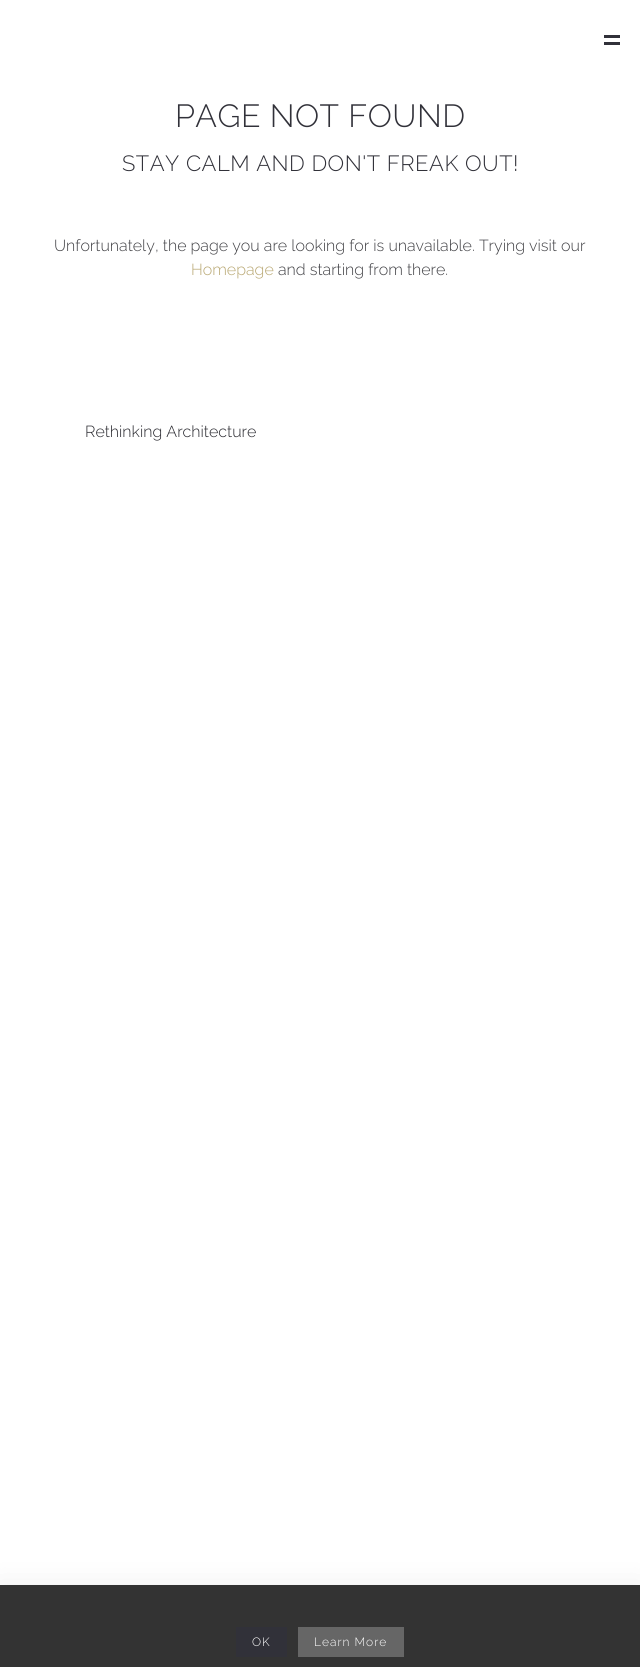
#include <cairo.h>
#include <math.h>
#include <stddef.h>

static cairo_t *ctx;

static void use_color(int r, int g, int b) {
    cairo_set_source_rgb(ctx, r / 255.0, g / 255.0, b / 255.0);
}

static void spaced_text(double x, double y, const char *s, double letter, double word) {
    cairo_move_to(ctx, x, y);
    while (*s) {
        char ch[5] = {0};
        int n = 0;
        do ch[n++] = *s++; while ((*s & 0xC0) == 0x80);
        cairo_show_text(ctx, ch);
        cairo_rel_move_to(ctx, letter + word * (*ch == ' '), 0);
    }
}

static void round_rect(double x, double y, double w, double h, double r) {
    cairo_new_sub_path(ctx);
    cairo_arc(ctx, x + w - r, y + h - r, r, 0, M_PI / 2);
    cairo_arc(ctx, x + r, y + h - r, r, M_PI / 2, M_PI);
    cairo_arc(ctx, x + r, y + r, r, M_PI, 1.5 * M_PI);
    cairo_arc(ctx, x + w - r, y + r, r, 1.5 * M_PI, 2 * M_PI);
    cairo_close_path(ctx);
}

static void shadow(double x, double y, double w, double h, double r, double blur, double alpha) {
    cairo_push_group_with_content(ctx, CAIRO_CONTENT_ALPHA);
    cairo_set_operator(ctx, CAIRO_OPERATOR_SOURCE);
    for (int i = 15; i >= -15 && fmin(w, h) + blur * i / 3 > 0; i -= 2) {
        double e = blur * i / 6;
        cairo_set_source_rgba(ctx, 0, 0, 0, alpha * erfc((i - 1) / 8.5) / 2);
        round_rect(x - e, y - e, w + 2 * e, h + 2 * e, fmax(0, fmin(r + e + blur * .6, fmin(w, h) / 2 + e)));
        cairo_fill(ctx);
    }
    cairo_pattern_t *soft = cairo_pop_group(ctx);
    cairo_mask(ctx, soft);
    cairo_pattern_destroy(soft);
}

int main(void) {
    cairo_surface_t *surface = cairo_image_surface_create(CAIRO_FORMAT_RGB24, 640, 1667);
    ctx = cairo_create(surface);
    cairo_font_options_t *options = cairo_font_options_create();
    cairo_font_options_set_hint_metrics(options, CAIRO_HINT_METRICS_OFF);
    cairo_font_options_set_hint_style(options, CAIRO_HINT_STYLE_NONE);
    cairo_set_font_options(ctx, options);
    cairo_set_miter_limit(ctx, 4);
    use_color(255, 255, 255);
    cairo_paint(ctx);
    use_color(49, 49, 57);
    cairo_rectangle(ctx, 604, 42, 16, 3);
    cairo_fill(ctx);
    cairo_rectangle(ctx, 604, 35, 16, 3);
    cairo_fill(ctx);
    cairo_select_font_face(ctx, "Raleway Light", CAIRO_FONT_SLANT_NORMAL, CAIRO_FONT_WEIGHT_NORMAL);
    cairo_set_font_size(ctx, 32);
    spaced_text(175, 127, "PAGE NOT FOUND", 0.5, 0);
    cairo_set_font_size(ctx, 22);
    spaced_text(122, 171, "STAY CALM AND DON'T FREAK OUT!", 0.5, 0);
    cairo_set_font_size(ctx, 16);
    use_color(65, 65, 69);
    cairo_move_to(ctx, 54, 251);
    cairo_show_text(ctx, "Unfortunately, the page you are looking for is unavailable. Trying visit our");
    use_color(184, 167, 114);
    cairo_move_to(ctx, 191, 275);
    cairo_show_text(ctx, "Homepage");
    use_color(65, 65, 69);
    cairo_move_to(ctx, 278, 275);
    cairo_show_text(ctx, "and starting from there.");
    use_color(40, 40, 46);
    cairo_move_to(ctx, 85, 437);
    cairo_show_text(ctx, "Rethinking Architecture");
    use_color(0, 0, 0);
    shadow(0, 1592, 640, 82, 0, 16.5, 0.1);
    use_color(51, 51, 51);
    cairo_rectangle(ctx, 0, 1585, 640, 82);
    cairo_fill(ctx);
    use_color(49, 49, 57);
    cairo_rectangle(ctx, 236, 1627, 51, 30);
    cairo_fill(ctx);
    cairo_set_font_size(ctx, 12);
    use_color(255, 255, 255);
    spaced_text(252, 1646, "OK", 1, 0);
    use_color(102, 102, 102);
    cairo_rectangle(ctx, 298, 1627, 106, 30);
    cairo_fill(ctx);
    use_color(255, 255, 255);
    spaced_text(314, 1646, "Learn More", 1, 0);
    cairo_surface_write_to_png(surface, "result.png");
    cairo_font_options_destroy(options);
    cairo_destroy(ctx);
    cairo_surface_destroy(surface);
    return 0;
}
